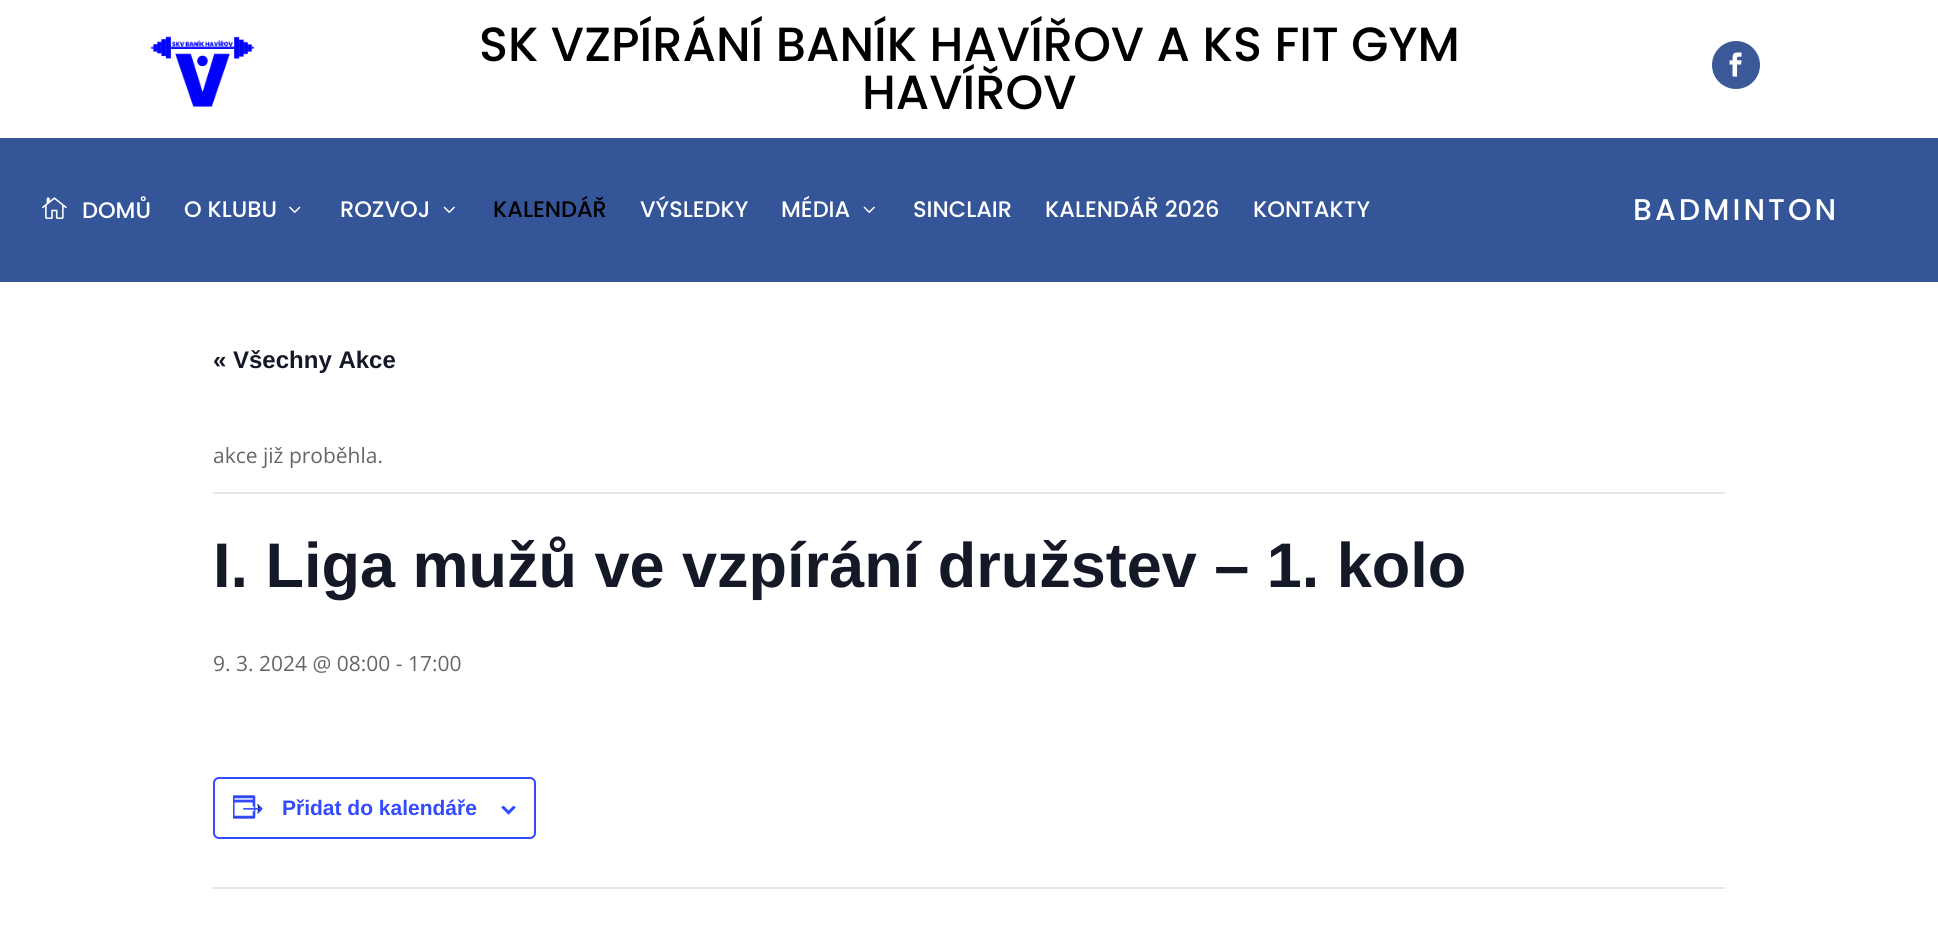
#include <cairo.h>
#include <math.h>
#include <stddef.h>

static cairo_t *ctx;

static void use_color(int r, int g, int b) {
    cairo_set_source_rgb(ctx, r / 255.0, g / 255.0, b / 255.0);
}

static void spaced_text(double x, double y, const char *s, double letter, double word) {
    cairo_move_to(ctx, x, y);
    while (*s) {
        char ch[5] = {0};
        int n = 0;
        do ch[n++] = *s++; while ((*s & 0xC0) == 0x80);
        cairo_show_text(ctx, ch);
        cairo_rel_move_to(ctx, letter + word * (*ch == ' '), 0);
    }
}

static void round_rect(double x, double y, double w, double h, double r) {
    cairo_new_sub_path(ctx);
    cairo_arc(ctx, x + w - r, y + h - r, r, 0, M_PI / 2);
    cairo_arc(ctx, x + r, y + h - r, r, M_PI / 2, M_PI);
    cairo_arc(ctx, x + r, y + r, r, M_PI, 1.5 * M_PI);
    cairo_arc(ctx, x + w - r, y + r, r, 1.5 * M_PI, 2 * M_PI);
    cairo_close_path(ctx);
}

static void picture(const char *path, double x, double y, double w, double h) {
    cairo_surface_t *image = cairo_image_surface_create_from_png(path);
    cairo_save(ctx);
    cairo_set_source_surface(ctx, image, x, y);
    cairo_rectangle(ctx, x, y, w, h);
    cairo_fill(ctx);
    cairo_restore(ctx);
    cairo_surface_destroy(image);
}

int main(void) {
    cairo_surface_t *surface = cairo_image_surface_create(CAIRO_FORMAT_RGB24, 1938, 945);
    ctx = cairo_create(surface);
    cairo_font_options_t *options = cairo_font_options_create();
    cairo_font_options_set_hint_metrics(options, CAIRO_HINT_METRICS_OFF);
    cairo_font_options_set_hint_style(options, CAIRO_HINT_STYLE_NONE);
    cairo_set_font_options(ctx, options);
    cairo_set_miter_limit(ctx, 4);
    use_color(255, 255, 255);
    cairo_paint(ctx);
    use_color(53, 85, 153);
    cairo_rectangle(ctx, 0, 138, 1938, 144);
    cairo_fill(ctx);
    picture("img1.png", 150, 36, 105, 71);
    cairo_select_font_face(ctx, "Poppins Medium", CAIRO_FONT_SLANT_NORMAL, CAIRO_FONT_WEIGHT_NORMAL);
    cairo_set_font_size(ctx, 48);
    use_color(0, 0, 0);
    cairo_move_to(ctx, 479, 61);
    cairo_show_text(ctx, "SK VZPÍRÁNÍ BANÍK HAVÍŘOV A KS FIT GYM");
    cairo_move_to(ctx, 862, 109);
    cairo_show_text(ctx, "HAVÍŘOV");
    use_color(59, 89, 152);
    cairo_new_path(ctx);
    cairo_arc(ctx, 1736, 65, 24, 0, 2 * M_PI);
    cairo_fill(ctx);
    picture("img2.png", 1729, 52, 13, 25);
    picture("img3.png", 42, 197, 25, 22);
    cairo_set_font_size(ctx, 22.5);
    use_color(255, 255, 255);
    cairo_move_to(ctx, 82, 218);
    cairo_show_text(ctx, "DOMŮ");
    cairo_move_to(ctx, 184, 217);
    cairo_show_text(ctx, "O KLUBU");
    picture("img4.png", 289, 206, 12, 7);
    cairo_move_to(ctx, 340, 217);
    cairo_show_text(ctx, "ROZVOJ");
    picture("img5.png", 443, 206, 12, 7);
    use_color(0, 0, 0);
    cairo_move_to(ctx, 493, 217);
    cairo_show_text(ctx, "KALENDÁŘ");
    use_color(255, 255, 255);
    cairo_move_to(ctx, 640, 217);
    cairo_show_text(ctx, "VÝSLEDKY");
    cairo_move_to(ctx, 781, 217);
    cairo_show_text(ctx, "MÉDIA");
    picture("img5.png", 863, 206, 12, 7);
    cairo_move_to(ctx, 913, 217);
    cairo_show_text(ctx, "SINCLAIR");
    cairo_move_to(ctx, 1045, 217);
    cairo_show_text(ctx, "KALENDÁŘ 2026");
    cairo_move_to(ctx, 1253, 217);
    cairo_show_text(ctx, "KONTAKTY");
    cairo_set_font_size(ctx, 30);
    spaced_text(1633, 220, "BADMINTON", 3, 0);
    cairo_select_font_face(ctx, "Liberation Sans", CAIRO_FONT_SLANT_NORMAL, CAIRO_FONT_WEIGHT_BOLD);
    cairo_set_font_size(ctx, 24);
    use_color(20, 24, 39);
    cairo_move_to(ctx, 213, 368);
    cairo_show_text(ctx, "« Všechny Akce");
    use_color(228, 228, 228);
    cairo_rectangle(ctx, 213, 492, 1512, 2);
    cairo_fill(ctx);
    cairo_select_font_face(ctx, "Open Sans", CAIRO_FONT_SLANT_NORMAL, CAIRO_FONT_WEIGHT_NORMAL);
    cairo_set_font_size(ctx, 21);
    use_color(102, 102, 102);
    cairo_move_to(ctx, 213, 463);
    cairo_show_text(ctx, "akce již proběhla.");
    cairo_select_font_face(ctx, "Liberation Sans", CAIRO_FONT_SLANT_NORMAL, CAIRO_FONT_WEIGHT_BOLD);
    cairo_set_font_size(ctx, 63);
    use_color(20, 24, 39);
    cairo_move_to(ctx, 213, 587);
    cairo_show_text(ctx, "I. Liga mužů ve vzpírání družstev – 1. kolo");
    cairo_select_font_face(ctx, "Open Sans", CAIRO_FONT_SLANT_NORMAL, CAIRO_FONT_WEIGHT_NORMAL);
    cairo_set_font_size(ctx, 21);
    use_color(102, 102, 102);
    cairo_move_to(ctx, 213, 671);
    cairo_show_text(ctx, "9. 3. 2024 @ 08:00 - 17:00");
    round_rect(214, 778, 321, 60, 5);
    use_color(51, 74, 255);
    cairo_stroke(ctx);
    picture("img6.png", 233, 795, 30, 24);
    cairo_select_font_face(ctx, "Liberation Sans", CAIRO_FONT_SLANT_NORMAL, CAIRO_FONT_WEIGHT_BOLD);
    cairo_move_to(ctx, 282, 815);
    cairo_show_text(ctx, "Přidat do kalendáře");
    picture("img7.png", 501, 806, 15, 9);
    use_color(228, 228, 228);
    cairo_rectangle(ctx, 213, 887, 1512, 2);
    cairo_fill(ctx);
    cairo_surface_write_to_png(surface, "result.png");
    cairo_font_options_destroy(options);
    cairo_destroy(ctx);
    cairo_surface_destroy(surface);
    return 0;
}
